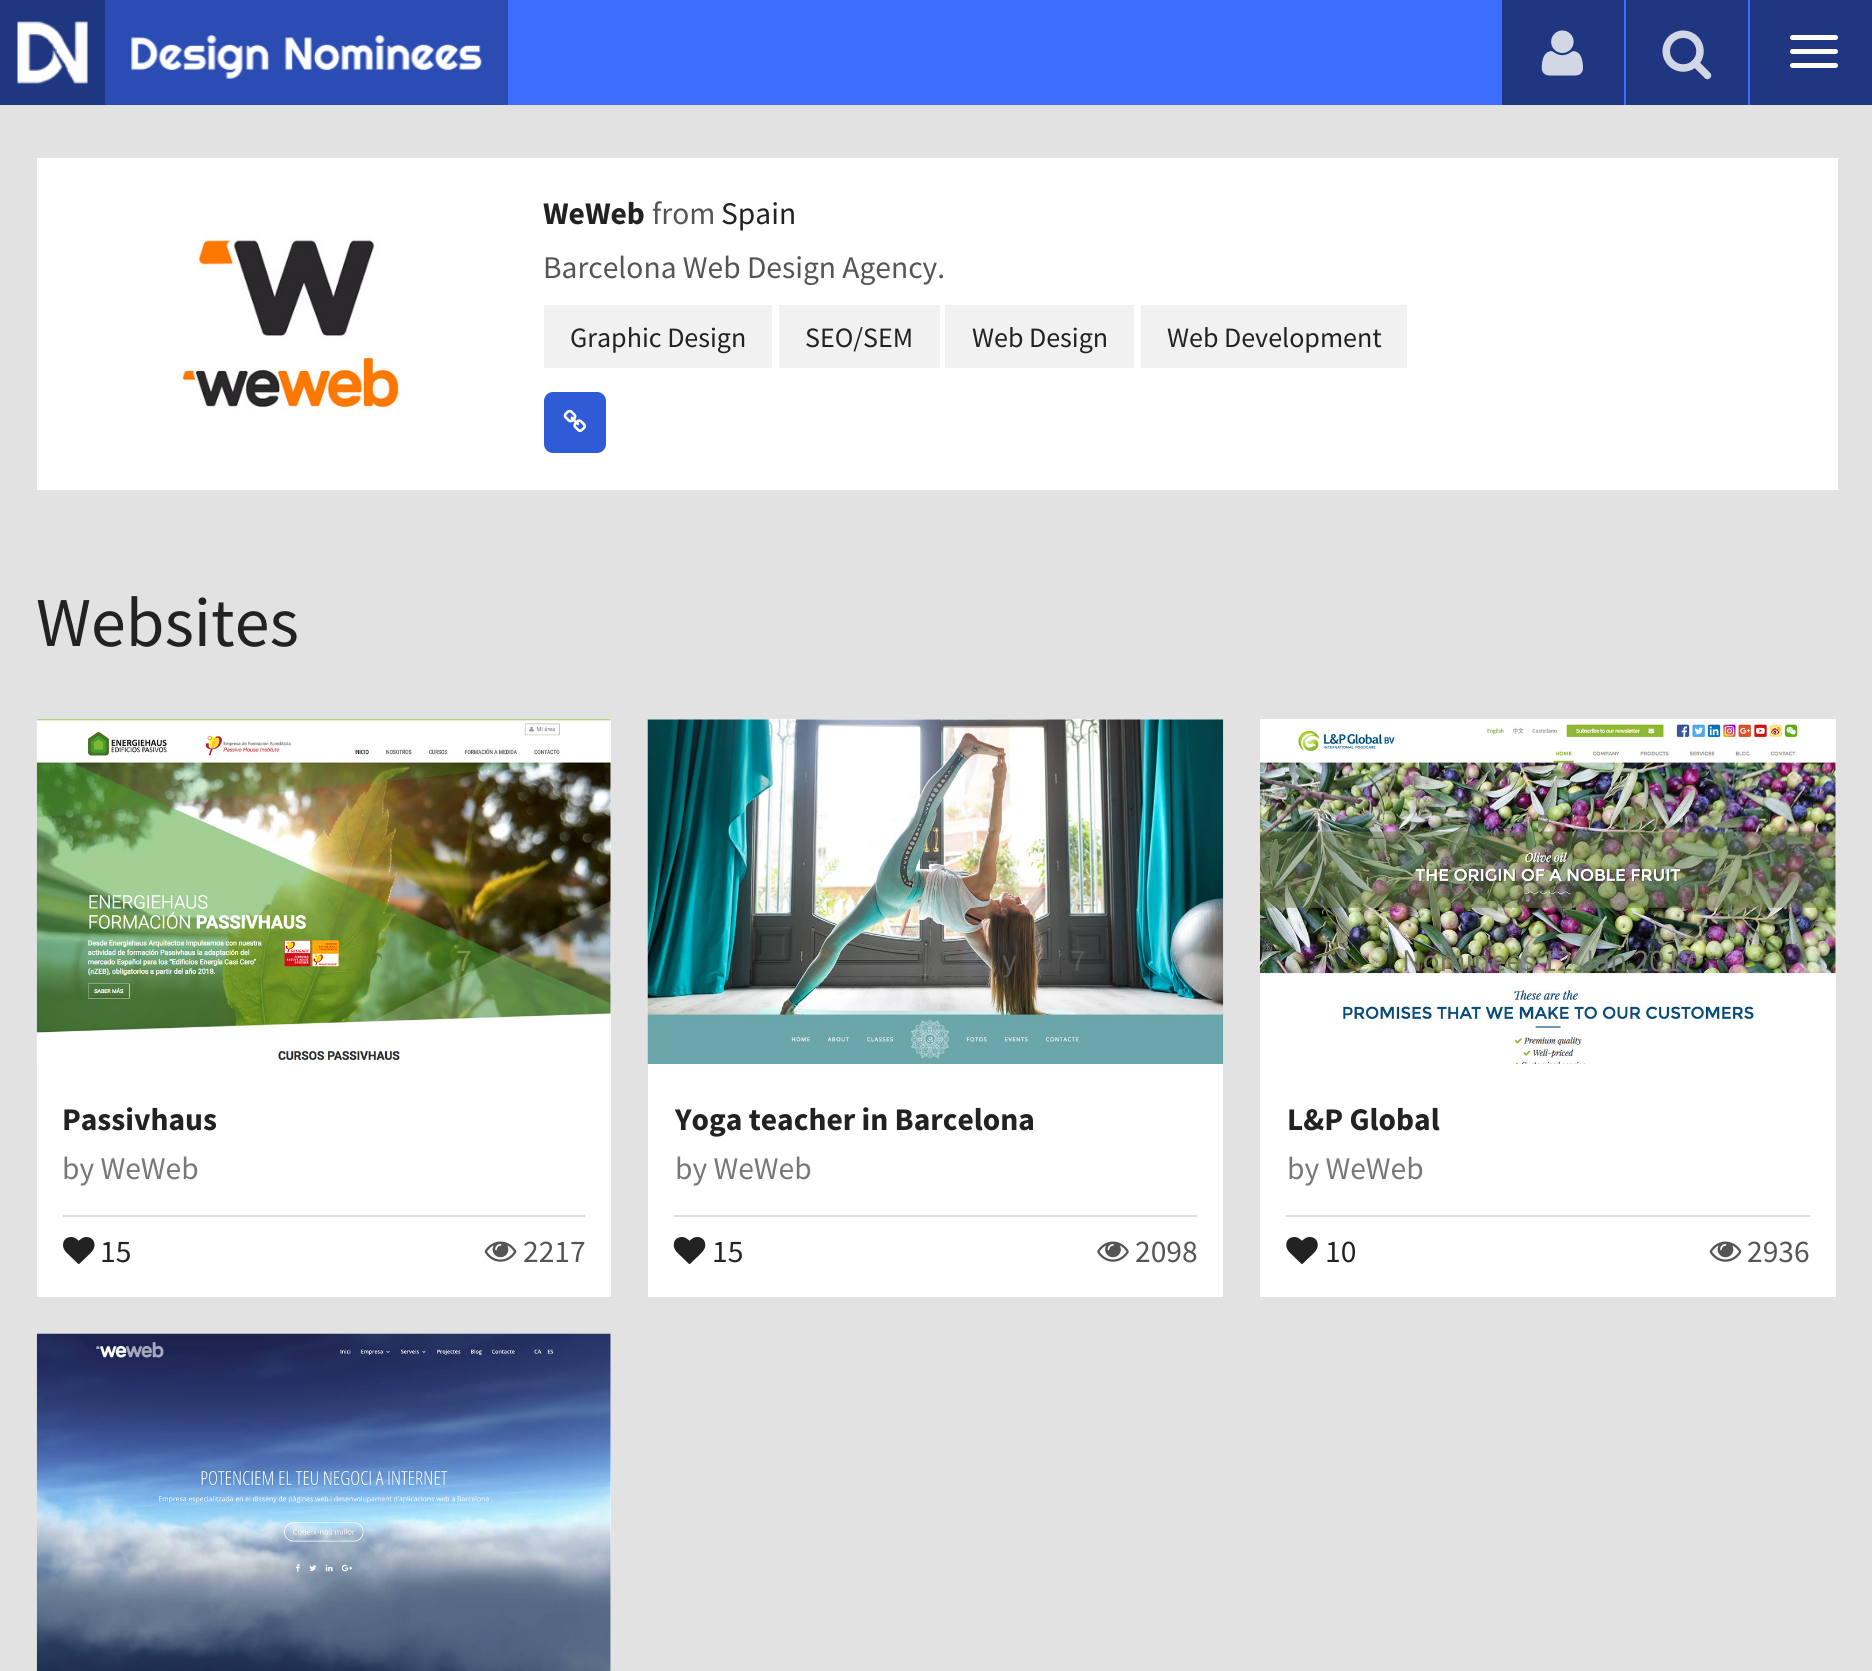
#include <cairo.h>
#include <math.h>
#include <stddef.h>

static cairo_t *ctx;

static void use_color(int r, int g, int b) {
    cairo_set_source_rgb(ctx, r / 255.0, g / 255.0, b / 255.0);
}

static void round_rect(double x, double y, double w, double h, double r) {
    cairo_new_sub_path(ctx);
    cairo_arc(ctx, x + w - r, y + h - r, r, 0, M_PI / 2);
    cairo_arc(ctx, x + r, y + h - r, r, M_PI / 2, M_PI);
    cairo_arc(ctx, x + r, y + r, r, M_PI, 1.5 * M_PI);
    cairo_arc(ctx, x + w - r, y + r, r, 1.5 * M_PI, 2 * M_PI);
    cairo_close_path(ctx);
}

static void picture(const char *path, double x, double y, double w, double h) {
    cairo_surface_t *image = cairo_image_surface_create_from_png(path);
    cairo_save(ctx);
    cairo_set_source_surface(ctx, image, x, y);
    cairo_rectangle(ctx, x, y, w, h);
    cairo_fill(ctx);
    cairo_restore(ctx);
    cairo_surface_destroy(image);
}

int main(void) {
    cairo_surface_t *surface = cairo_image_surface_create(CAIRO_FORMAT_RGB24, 1872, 1671);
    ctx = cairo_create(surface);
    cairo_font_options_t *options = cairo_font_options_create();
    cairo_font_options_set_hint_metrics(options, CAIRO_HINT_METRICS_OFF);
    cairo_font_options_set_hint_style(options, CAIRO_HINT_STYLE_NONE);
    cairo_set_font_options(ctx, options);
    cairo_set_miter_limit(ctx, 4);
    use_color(226, 226, 226);
    cairo_paint(ctx);
    use_color(61, 109, 255);
    cairo_rectangle(ctx, 508, 0, 1242, 105);
    cairo_fill(ctx);
    use_color(31, 55, 128);
    cairo_rectangle(ctx, 0, 0, 105, 105);
    cairo_fill(ctx);
    picture("img1.png", 17, 21, 71, 63);
    use_color(43, 76, 179);
    cairo_rectangle(ctx, 105, 0, 403, 105);
    cairo_fill(ctx);
    picture("img2.png", 131, 35, 351, 44);
    use_color(31, 55, 128);
    cairo_rectangle(ctx, 1502, 0, 122, 105);
    cairo_fill(ctx);
    picture("img3.png", 1541, 30, 42, 46);
    cairo_rectangle(ctx, 1626, 0, 122, 105);
    cairo_fill(ctx);
    picture("img4.png", 1662, 30, 50, 50);
    cairo_rectangle(ctx, 1750, 0, 122, 105);
    cairo_fill(ctx);
    use_color(255, 255, 255);
    round_rect(1790, 35, 48, 5, 2.5);
    cairo_fill(ctx);
    round_rect(1790, 49, 48, 5, 2.5);
    cairo_fill(ctx);
    round_rect(1790, 63, 48, 5, 2.5);
    cairo_fill(ctx);
    cairo_rectangle(ctx, 37, 158, 1801, 332);
    cairo_fill(ctx);
    picture("img5.png", 177, 235, 224, 175);
    cairo_select_font_face(ctx, "Source Sans Pro", CAIRO_FONT_SLANT_NORMAL, CAIRO_FONT_WEIGHT_BOLD);
    cairo_set_font_size(ctx, 31.5);
    use_color(34, 34, 34);
    cairo_move_to(ctx, 543, 224);
    cairo_show_text(ctx, "WeWeb");
    cairo_select_font_face(ctx, "Source Sans Pro", CAIRO_FONT_SLANT_NORMAL, CAIRO_FONT_WEIGHT_NORMAL);
    use_color(85, 85, 85);
    cairo_move_to(ctx, 652, 224);
    cairo_show_text(ctx, "from");
    use_color(34, 34, 34);
    cairo_move_to(ctx, 721, 224);
    cairo_show_text(ctx, "Spain");
    use_color(85, 85, 85);
    cairo_move_to(ctx, 543, 278);
    cairo_show_text(ctx, "Barcelona Web Design Agency.");
    use_color(241, 241, 241);
    cairo_rectangle(ctx, 544, 305, 228, 63);
    cairo_fill(ctx);
    cairo_set_font_size(ctx, 28);
    use_color(34, 34, 34);
    cairo_move_to(ctx, 570, 347);
    cairo_show_text(ctx, "Graphic Design");
    use_color(241, 241, 241);
    cairo_rectangle(ctx, 779, 305, 161, 63);
    cairo_fill(ctx);
    use_color(34, 34, 34);
    cairo_move_to(ctx, 805, 347);
    cairo_show_text(ctx, "SEO/SEM");
    use_color(241, 241, 241);
    cairo_rectangle(ctx, 945, 305, 189, 63);
    cairo_fill(ctx);
    use_color(34, 34, 34);
    cairo_move_to(ctx, 972, 347);
    cairo_show_text(ctx, "Web Design");
    use_color(241, 241, 241);
    cairo_rectangle(ctx, 1141, 305, 266, 63);
    cairo_fill(ctx);
    use_color(34, 34, 34);
    cairo_move_to(ctx, 1167, 347);
    cairo_show_text(ctx, "Web Development");
    use_color(48, 91, 214);
    round_rect(544, 392, 62, 61, 9);
    cairo_fill(ctx);
    picture("img6.png", 563, 409, 23, 23);
    cairo_set_font_size(ctx, 70);
    use_color(34, 34, 34);
    cairo_move_to(ctx, 36, 646);
    cairo_show_text(ctx, "Websites");
    use_color(255, 255, 255);
    cairo_rectangle(ctx, 37, 719, 574, 578);
    cairo_fill(ctx);
    picture("img7.png", 36, 719, 575, 345);
    cairo_set_font_size(ctx, 31.5);
    use_color(127, 149, 78);
    cairo_move_to(ctx, 456, 971);
    cairo_show_text(ctx, "7");
    cairo_select_font_face(ctx, "Source Sans Pro", CAIRO_FONT_SLANT_NORMAL, CAIRO_FONT_WEIGHT_BOLD);
    use_color(34, 34, 34);
    cairo_move_to(ctx, 62, 1130);
    cairo_show_text(ctx, "Passivhaus");
    cairo_select_font_face(ctx, "Source Sans Pro", CAIRO_FONT_SLANT_NORMAL, CAIRO_FONT_WEIGHT_NORMAL);
    use_color(119, 119, 119);
    cairo_move_to(ctx, 62, 1179);
    cairo_show_text(ctx, "by WeWeb");
    use_color(221, 221, 221);
    cairo_rectangle(ctx, 63, 1215, 522, 2);
    cairo_fill(ctx);
    picture("img8.png", 63, 1237, 32, 27);
    use_color(34, 34, 34);
    cairo_move_to(ctx, 100, 1262);
    cairo_show_text(ctx, "15");
    picture("img9.png", 484, 1241, 33, 21);
    use_color(85, 85, 85);
    cairo_move_to(ctx, 523, 1262);
    cairo_show_text(ctx, "2217");
    use_color(255, 255, 255);
    cairo_rectangle(ctx, 648, 719, 575, 578);
    cairo_fill(ctx);
    picture("img10.png", 647, 719, 577, 345);
    use_color(90, 91, 86);
    cairo_move_to(ctx, 1002, 971);
    cairo_show_text(ctx, "y");
    cairo_move_to(ctx, 1070, 971);
    cairo_show_text(ctx, "7");
    cairo_select_font_face(ctx, "Source Sans Pro", CAIRO_FONT_SLANT_NORMAL, CAIRO_FONT_WEIGHT_BOLD);
    use_color(34, 34, 34);
    cairo_move_to(ctx, 675, 1130);
    cairo_show_text(ctx, "Yoga teacher in Barcelona");
    cairo_select_font_face(ctx, "Source Sans Pro", CAIRO_FONT_SLANT_NORMAL, CAIRO_FONT_WEIGHT_NORMAL);
    use_color(119, 119, 119);
    cairo_move_to(ctx, 675, 1179);
    cairo_show_text(ctx, "by WeWeb");
    use_color(221, 221, 221);
    cairo_rectangle(ctx, 674, 1215, 523, 2);
    cairo_fill(ctx);
    picture("img11.png", 673, 1237, 33, 27);
    use_color(34, 34, 34);
    cairo_move_to(ctx, 712, 1262);
    cairo_show_text(ctx, "15");
    picture("img12.png", 1097, 1241, 32, 21);
    use_color(85, 85, 85);
    cairo_move_to(ctx, 1135, 1262);
    cairo_show_text(ctx, "2098");
    use_color(255, 255, 255);
    cairo_rectangle(ctx, 1260, 719, 576, 578);
    cairo_fill(ctx);
    picture("img13.png", 1260, 724, 576, 340);
    use_color(116, 119, 101);
    cairo_move_to(ctx, 1402, 971);
    cairo_show_text(ctx, "Nominees 12 Jan 2017");
    cairo_select_font_face(ctx, "Source Sans Pro", CAIRO_FONT_SLANT_NORMAL, CAIRO_FONT_WEIGHT_BOLD);
    use_color(34, 34, 34);
    cairo_move_to(ctx, 1287, 1130);
    cairo_show_text(ctx, "L&P Global");
    cairo_select_font_face(ctx, "Source Sans Pro", CAIRO_FONT_SLANT_NORMAL, CAIRO_FONT_WEIGHT_NORMAL);
    use_color(119, 119, 119);
    cairo_move_to(ctx, 1287, 1179);
    cairo_show_text(ctx, "by WeWeb");
    use_color(221, 221, 221);
    cairo_rectangle(ctx, 1286, 1215, 524, 2);
    cairo_fill(ctx);
    picture("img14.png", 1286, 1237, 32, 27);
    use_color(34, 34, 34);
    cairo_move_to(ctx, 1325, 1262);
    cairo_show_text(ctx, "10");
    picture("img15.png", 1709, 1241, 33, 21);
    use_color(85, 85, 85);
    cairo_move_to(ctx, 1747, 1262);
    cairo_show_text(ctx, "2936");
    use_color(255, 255, 255);
    cairo_rectangle(ctx, 610, 1334, 1, 337);
    cairo_fill(ctx);
    picture("img16.png", 36, 1333, 575, 338);
    cairo_surface_write_to_png(surface, "result.png");
    cairo_font_options_destroy(options);
    cairo_destroy(ctx);
    cairo_surface_destroy(surface);
    return 0;
}
